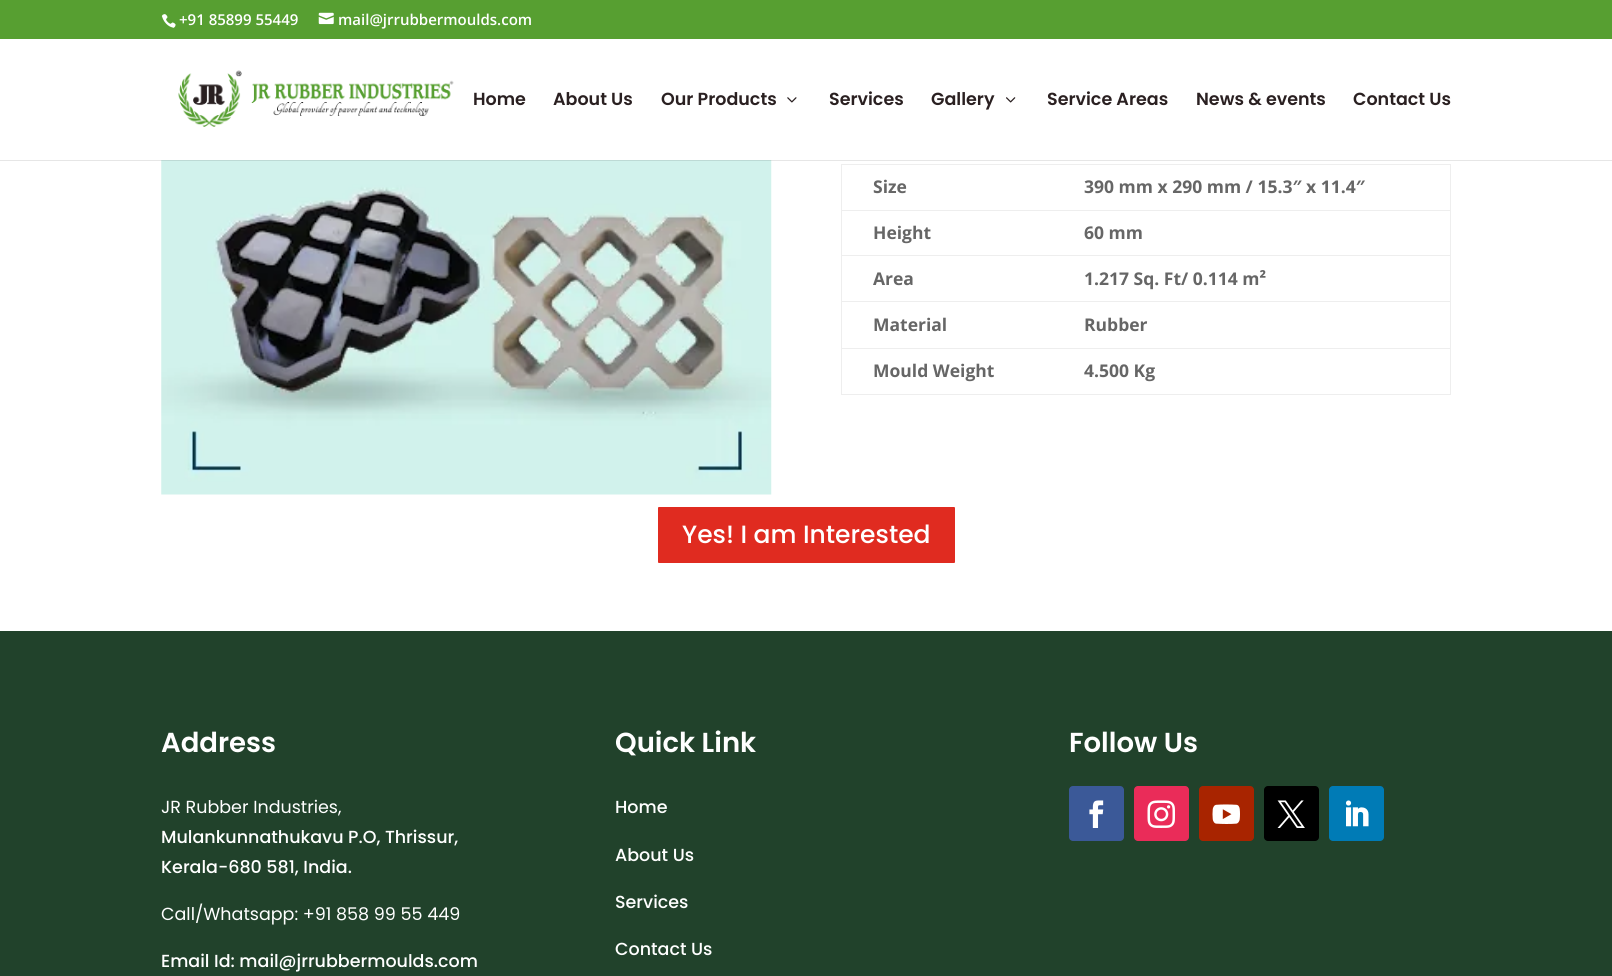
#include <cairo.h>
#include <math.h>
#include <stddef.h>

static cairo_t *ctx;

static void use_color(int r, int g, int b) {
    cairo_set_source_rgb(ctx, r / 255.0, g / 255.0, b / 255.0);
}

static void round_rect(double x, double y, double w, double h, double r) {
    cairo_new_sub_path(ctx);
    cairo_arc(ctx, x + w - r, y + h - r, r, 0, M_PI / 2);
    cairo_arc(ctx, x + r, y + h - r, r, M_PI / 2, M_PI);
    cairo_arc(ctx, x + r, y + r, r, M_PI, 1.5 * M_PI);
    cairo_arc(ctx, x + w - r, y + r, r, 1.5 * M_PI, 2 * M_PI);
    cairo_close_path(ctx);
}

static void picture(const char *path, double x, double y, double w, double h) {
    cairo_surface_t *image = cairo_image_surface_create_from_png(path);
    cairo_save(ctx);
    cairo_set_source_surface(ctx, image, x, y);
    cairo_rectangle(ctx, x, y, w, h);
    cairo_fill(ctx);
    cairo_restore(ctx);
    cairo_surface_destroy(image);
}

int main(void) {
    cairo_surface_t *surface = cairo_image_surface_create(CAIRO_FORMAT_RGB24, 1612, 976);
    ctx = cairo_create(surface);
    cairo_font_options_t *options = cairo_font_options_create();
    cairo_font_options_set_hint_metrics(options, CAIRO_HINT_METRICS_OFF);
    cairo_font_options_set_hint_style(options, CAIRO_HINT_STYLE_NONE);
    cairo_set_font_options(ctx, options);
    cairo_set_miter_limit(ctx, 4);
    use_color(255, 255, 255);
    cairo_paint(ctx);
    use_color(87, 159, 49);
    cairo_rectangle(ctx, 0, 0, 1612, 39);
    cairo_fill(ctx);
    picture("img1.png", 161, 14, 15, 14);
    cairo_select_font_face(ctx, "Open Sans SemiBold", CAIRO_FONT_SLANT_NORMAL, CAIRO_FONT_WEIGHT_NORMAL);
    cairo_set_font_size(ctx, 15);
    use_color(255, 255, 255);
    cairo_move_to(ctx, 179, 25);
    cairo_show_text(ctx, "+91 85899 55449");
    picture("img2.png", 318, 12, 16, 13);
    cairo_move_to(ctx, 338, 25);
    cairo_show_text(ctx, "mail@jrrubbermoulds.com");
    picture("img6.png", 161, 160, 611, 335);
    cairo_set_source_rgba(ctx, 0, 0, 0, 0.1);
    cairo_new_path(ctx);
    cairo_move_to(ctx, 0, 160);
    cairo_line_to(ctx, 0, 161);
    cairo_line_to(ctx, 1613, 161);
    cairo_line_to(ctx, 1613, 39);
    cairo_line_to(ctx, 1612, 39);
    cairo_line_to(ctx, 1612, 160);
    cairo_close_path(ctx);
    cairo_fill(ctx);
    picture("img3.png", 178, 70, 276, 57);
    cairo_select_font_face(ctx, "Poppins SemiBold", CAIRO_FONT_SLANT_NORMAL, CAIRO_FONT_WEIGHT_NORMAL);
    cairo_set_font_size(ctx, 17.5);
    use_color(42, 32, 33);
    cairo_move_to(ctx, 473, 105);
    cairo_show_text(ctx, "Home");
    cairo_move_to(ctx, 553, 105);
    cairo_show_text(ctx, "About Us");
    cairo_move_to(ctx, 661, 105);
    cairo_show_text(ctx, "Our Products");
    picture("img4.png", 787, 97, 10, 6);
    cairo_move_to(ctx, 829, 105);
    cairo_show_text(ctx, "Services");
    cairo_move_to(ctx, 931, 105);
    cairo_show_text(ctx, "Gallery");
    picture("img5.png", 1006, 97, 10, 6);
    cairo_move_to(ctx, 1047, 105);
    cairo_show_text(ctx, "Service Areas");
    cairo_move_to(ctx, 1196, 105);
    cairo_show_text(ctx, "News & events");
    cairo_move_to(ctx, 1353, 105);
    cairo_show_text(ctx, "Contact Us");
    use_color(238, 238, 238);
    cairo_rectangle(ctx, 841, 164, 610, 1);
    cairo_fill(ctx);
    cairo_rectangle(ctx, 1450, 164, 1, 231);
    cairo_fill(ctx);
    cairo_rectangle(ctx, 841, 394, 610, 1);
    cairo_fill(ctx);
    cairo_rectangle(ctx, 841, 164, 1, 231);
    cairo_fill(ctx);
    cairo_select_font_face(ctx, "Open Sans", CAIRO_FONT_SLANT_NORMAL, CAIRO_FONT_WEIGHT_BOLD);
    use_color(102, 102, 102);
    cairo_move_to(ctx, 873, 193);
    cairo_show_text(ctx, "Size");
    cairo_move_to(ctx, 1084, 193);
    cairo_show_text(ctx, "390 mm x 290 mm / 15.3″ x 11.4″");
    cairo_move_to(ctx, 873, 239);
    cairo_show_text(ctx, "Height");
    use_color(238, 238, 238);
    cairo_rectangle(ctx, 841, 210, 610, 1);
    cairo_fill(ctx);
    use_color(102, 102, 102);
    cairo_move_to(ctx, 1084, 239);
    cairo_show_text(ctx, "60 mm");
    cairo_move_to(ctx, 873, 285);
    cairo_show_text(ctx, "Area");
    use_color(238, 238, 238);
    cairo_rectangle(ctx, 841, 255, 610, 1);
    cairo_fill(ctx);
    use_color(102, 102, 102);
    cairo_move_to(ctx, 1084, 285);
    cairo_show_text(ctx, "1.217 Sq. Ft/ 0.114 m²");
    cairo_move_to(ctx, 873, 331);
    cairo_show_text(ctx, "Material");
    use_color(238, 238, 238);
    cairo_rectangle(ctx, 841, 301, 610, 1);
    cairo_fill(ctx);
    use_color(102, 102, 102);
    cairo_move_to(ctx, 1084, 331);
    cairo_show_text(ctx, "Rubber");
    cairo_move_to(ctx, 873, 377);
    cairo_show_text(ctx, "Mould Weight");
    use_color(238, 238, 238);
    cairo_rectangle(ctx, 841, 348, 610, 1);
    cairo_fill(ctx);
    use_color(102, 102, 102);
    cairo_move_to(ctx, 1084, 377);
    cairo_show_text(ctx, "4.500 Kg");
    use_color(224, 43, 32);
    round_rect(656.5, 505.5, 300, 59, 2.5);
    cairo_fill_preserve(ctx);
    use_color(255, 255, 255);
    cairo_set_line_width(ctx, 3);
    cairo_stroke(ctx);
    cairo_select_font_face(ctx, "Poppins Medium", CAIRO_FONT_SLANT_NORMAL, CAIRO_FONT_WEIGHT_NORMAL);
    cairo_set_font_size(ctx, 25);
    cairo_move_to(ctx, 682, 543);
    cairo_show_text(ctx, "Yes! I am Interested");
    use_color(33, 66, 43);
    cairo_rectangle(ctx, 0, 631, 1612, 345);
    cairo_fill(ctx);
    cairo_select_font_face(ctx, "Poppins SemiBold", CAIRO_FONT_SLANT_NORMAL, CAIRO_FONT_WEIGHT_NORMAL);
    cairo_set_font_size(ctx, 27.5);
    use_color(255, 255, 255);
    cairo_move_to(ctx, 161, 752);
    cairo_show_text(ctx, "Address");
    cairo_select_font_face(ctx, "Poppins", CAIRO_FONT_SLANT_NORMAL, CAIRO_FONT_WEIGHT_NORMAL);
    cairo_set_font_size(ctx, 17.5);
    cairo_move_to(ctx, 161, 813);
    cairo_show_text(ctx, "JR Rubber Industries,");
    cairo_select_font_face(ctx, "Poppins Medium", CAIRO_FONT_SLANT_NORMAL, CAIRO_FONT_WEIGHT_NORMAL);
    cairo_move_to(ctx, 161, 843);
    cairo_show_text(ctx, "Mulankunnathukavu P.O, Thrissur,");
    cairo_move_to(ctx, 161, 873);
    cairo_show_text(ctx, "Kerala-680 581, India.");
    cairo_select_font_face(ctx, "Poppins", CAIRO_FONT_SLANT_NORMAL, CAIRO_FONT_WEIGHT_NORMAL);
    cairo_move_to(ctx, 161, 920);
    cairo_show_text(ctx, "Call/Whatsapp: +91 858 99 55 449");
    cairo_select_font_face(ctx, "Poppins Medium", CAIRO_FONT_SLANT_NORMAL, CAIRO_FONT_WEIGHT_NORMAL);
    cairo_move_to(ctx, 161, 967);
    cairo_show_text(ctx, "Email Id: mail@jrrubbermoulds.com");
    cairo_select_font_face(ctx, "Poppins SemiBold", CAIRO_FONT_SLANT_NORMAL, CAIRO_FONT_WEIGHT_NORMAL);
    cairo_set_font_size(ctx, 27.5);
    cairo_move_to(ctx, 615, 752);
    cairo_show_text(ctx, "Quick Link");
    cairo_select_font_face(ctx, "Poppins Medium", CAIRO_FONT_SLANT_NORMAL, CAIRO_FONT_WEIGHT_NORMAL);
    cairo_set_font_size(ctx, 17.5);
    cairo_move_to(ctx, 615, 813);
    cairo_show_text(ctx, "Home");
    cairo_move_to(ctx, 615, 861);
    cairo_show_text(ctx, "About Us");
    cairo_move_to(ctx, 615, 908);
    cairo_show_text(ctx, "Services");
    cairo_move_to(ctx, 615, 955);
    cairo_show_text(ctx, "Contact Us");
    cairo_select_font_face(ctx, "Poppins SemiBold", CAIRO_FONT_SLANT_NORMAL, CAIRO_FONT_WEIGHT_NORMAL);
    cairo_set_font_size(ctx, 27.5);
    cairo_move_to(ctx, 1069, 752);
    cairo_show_text(ctx, "Follow Us");
    use_color(59, 89, 152);
    round_rect(1069, 786, 55, 55, 4);
    cairo_fill(ctx);
    picture("img7.png", 1089, 800, 15, 28);
    use_color(234, 44, 89);
    round_rect(1134, 786, 55, 55, 4);
    cairo_fill(ctx);
    picture("img8.png", 1147, 800, 28, 28);
    use_color(168, 36, 0);
    round_rect(1199, 786, 55, 55, 4);
    cairo_fill(ctx);
    picture("img9.png", 1212, 804, 28, 20);
    use_color(0, 0, 0);
    round_rect(1264, 786, 55, 55, 4);
    cairo_fill(ctx);
    picture("img10.png", 1277, 800, 28, 28);
    use_color(0, 123, 182);
    round_rect(1329, 786, 55, 55, 4);
    cairo_fill(ctx);
    picture("img11.png", 1346, 800, 23, 27);
    cairo_surface_write_to_png(surface, "result.png");
    cairo_font_options_destroy(options);
    cairo_destroy(ctx);
    cairo_surface_destroy(surface);
    return 0;
}
